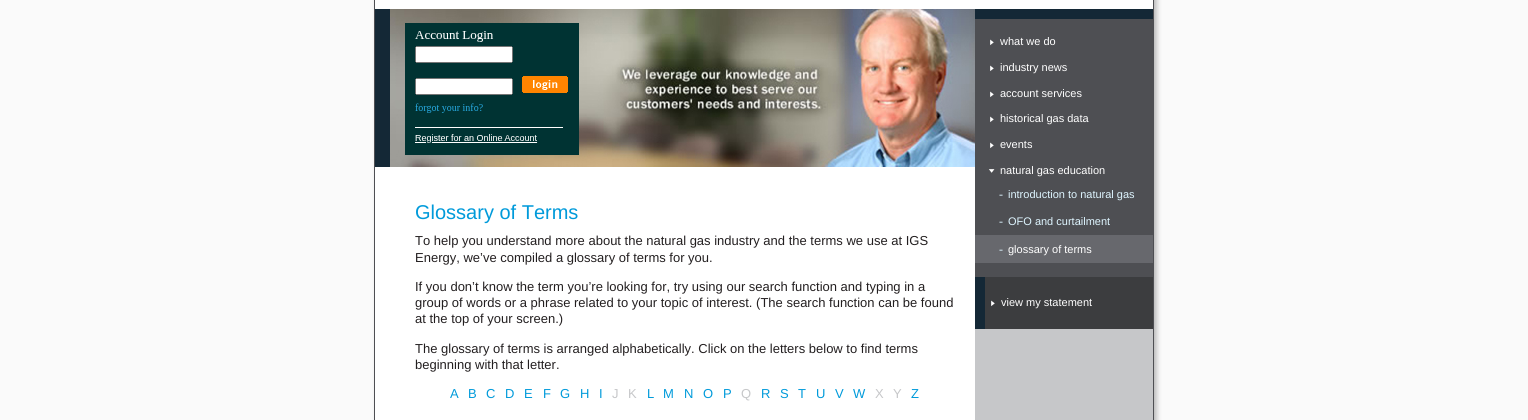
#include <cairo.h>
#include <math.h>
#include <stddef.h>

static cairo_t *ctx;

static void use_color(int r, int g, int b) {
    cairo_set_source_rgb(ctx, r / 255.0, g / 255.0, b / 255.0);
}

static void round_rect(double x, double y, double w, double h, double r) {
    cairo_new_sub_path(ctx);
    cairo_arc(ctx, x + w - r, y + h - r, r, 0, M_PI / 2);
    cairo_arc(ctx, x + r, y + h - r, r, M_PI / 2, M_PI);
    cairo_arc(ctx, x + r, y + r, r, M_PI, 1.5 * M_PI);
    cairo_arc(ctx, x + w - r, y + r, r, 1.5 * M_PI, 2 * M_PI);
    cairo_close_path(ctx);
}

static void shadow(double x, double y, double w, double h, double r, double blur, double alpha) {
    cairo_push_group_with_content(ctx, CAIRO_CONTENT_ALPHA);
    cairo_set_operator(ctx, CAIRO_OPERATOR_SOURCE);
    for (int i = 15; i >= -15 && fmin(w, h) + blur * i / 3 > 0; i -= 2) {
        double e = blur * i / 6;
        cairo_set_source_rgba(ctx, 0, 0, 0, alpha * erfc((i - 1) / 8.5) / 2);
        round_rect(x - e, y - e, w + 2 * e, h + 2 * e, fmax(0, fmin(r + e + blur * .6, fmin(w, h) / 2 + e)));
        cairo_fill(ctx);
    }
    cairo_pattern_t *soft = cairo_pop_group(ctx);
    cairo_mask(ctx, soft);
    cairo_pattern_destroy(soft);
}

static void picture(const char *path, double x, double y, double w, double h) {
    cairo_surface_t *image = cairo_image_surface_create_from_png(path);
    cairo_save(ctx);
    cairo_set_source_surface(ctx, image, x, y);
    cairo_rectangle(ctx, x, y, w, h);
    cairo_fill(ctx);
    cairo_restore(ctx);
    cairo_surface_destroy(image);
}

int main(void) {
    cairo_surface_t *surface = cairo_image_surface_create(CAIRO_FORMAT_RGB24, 1528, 420);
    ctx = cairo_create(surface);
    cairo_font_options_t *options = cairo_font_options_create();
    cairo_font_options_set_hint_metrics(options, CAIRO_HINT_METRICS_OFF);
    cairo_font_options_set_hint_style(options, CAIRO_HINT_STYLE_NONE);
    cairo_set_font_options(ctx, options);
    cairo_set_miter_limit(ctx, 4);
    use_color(250, 250, 250);
    cairo_paint(ctx);
    use_color(0, 0, 0);
    shadow(377, -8, 780, 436, 0, 2.5, 0.25);
    use_color(255, 255, 255);
    cairo_rectangle(ctx, 374.5, -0.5, 779, 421);
    cairo_fill_preserve(ctx);
    use_color(78, 79, 83);
    cairo_set_line_width(ctx, 1);
    cairo_stroke(ctx);
    use_color(20, 40, 54);
    cairo_rectangle(ctx, 375, 9, 15, 158);
    cairo_fill(ctx);
    picture("img1.png", 390, 9, 585, 158);
    use_color(198, 199, 201);
    cairo_rectangle(ctx, 975, 329, 178, 91);
    cairo_fill(ctx);
    use_color(20, 40, 54);
    cairo_rectangle(ctx, 975, 9, 178, 10);
    cairo_fill(ctx);
    use_color(78, 79, 83);
    cairo_rectangle(ctx, 975, 19, 178, 258);
    cairo_fill(ctx);
    cairo_select_font_face(ctx, "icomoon", CAIRO_FONT_SLANT_NORMAL, CAIRO_FONT_WEIGHT_NORMAL);
    cairo_set_font_size(ctx, 6);
    use_color(255, 255, 255);
    cairo_move_to(ctx, 989, 45);
    cairo_show_text(ctx, "]");
    cairo_select_font_face(ctx, "Liberation Sans", CAIRO_FONT_SLANT_NORMAL, CAIRO_FONT_WEIGHT_NORMAL);
    cairo_set_font_size(ctx, 11);
    cairo_move_to(ctx, 1000, 45);
    cairo_show_text(ctx, "what we do");
    cairo_select_font_face(ctx, "icomoon", CAIRO_FONT_SLANT_NORMAL, CAIRO_FONT_WEIGHT_NORMAL);
    cairo_set_font_size(ctx, 6);
    cairo_move_to(ctx, 989, 71);
    cairo_show_text(ctx, "]");
    cairo_select_font_face(ctx, "Liberation Sans", CAIRO_FONT_SLANT_NORMAL, CAIRO_FONT_WEIGHT_NORMAL);
    cairo_set_font_size(ctx, 11);
    cairo_move_to(ctx, 1000, 71);
    cairo_show_text(ctx, "industry news");
    cairo_select_font_face(ctx, "icomoon", CAIRO_FONT_SLANT_NORMAL, CAIRO_FONT_WEIGHT_NORMAL);
    cairo_set_font_size(ctx, 6);
    cairo_move_to(ctx, 989, 97);
    cairo_show_text(ctx, "]");
    cairo_select_font_face(ctx, "Liberation Sans", CAIRO_FONT_SLANT_NORMAL, CAIRO_FONT_WEIGHT_NORMAL);
    cairo_set_font_size(ctx, 11);
    cairo_move_to(ctx, 1000, 97);
    cairo_show_text(ctx, "account services");
    cairo_select_font_face(ctx, "icomoon", CAIRO_FONT_SLANT_NORMAL, CAIRO_FONT_WEIGHT_NORMAL);
    cairo_set_font_size(ctx, 6);
    cairo_move_to(ctx, 989, 122);
    cairo_show_text(ctx, "]");
    cairo_select_font_face(ctx, "Liberation Sans", CAIRO_FONT_SLANT_NORMAL, CAIRO_FONT_WEIGHT_NORMAL);
    cairo_set_font_size(ctx, 11);
    cairo_move_to(ctx, 1000, 122);
    cairo_show_text(ctx, "historical gas data");
    cairo_select_font_face(ctx, "icomoon", CAIRO_FONT_SLANT_NORMAL, CAIRO_FONT_WEIGHT_NORMAL);
    cairo_set_font_size(ctx, 6);
    cairo_move_to(ctx, 989, 148);
    cairo_show_text(ctx, "]");
    cairo_select_font_face(ctx, "Liberation Sans", CAIRO_FONT_SLANT_NORMAL, CAIRO_FONT_WEIGHT_NORMAL);
    cairo_set_font_size(ctx, 11);
    cairo_move_to(ctx, 1000, 148);
    cairo_show_text(ctx, "events");
    cairo_select_font_face(ctx, "icomoon", CAIRO_FONT_SLANT_NORMAL, CAIRO_FONT_WEIGHT_NORMAL);
    cairo_set_font_size(ctx, 6);
    cairo_save(ctx);
    cairo_translate(ctx, 989, 168);
    cairo_rotate(ctx, 90 * M_PI / 180);
    cairo_move_to(ctx, 0, 0);
    cairo_show_text(ctx, "]");
    cairo_restore(ctx);
    cairo_select_font_face(ctx, "Liberation Sans", CAIRO_FONT_SLANT_NORMAL, CAIRO_FONT_WEIGHT_NORMAL);
    cairo_set_font_size(ctx, 11);
    cairo_move_to(ctx, 1000, 174);
    cairo_show_text(ctx, "natural gas education");
    cairo_select_font_face(ctx, "Liberation Serif", CAIRO_FONT_SLANT_NORMAL, CAIRO_FONT_WEIGHT_NORMAL);
    cairo_set_font_size(ctx, 12);
    use_color(222, 245, 255);
    cairo_move_to(ctx, 999, 198);
    cairo_show_text(ctx, "-");
    cairo_select_font_face(ctx, "Liberation Sans", CAIRO_FONT_SLANT_NORMAL, CAIRO_FONT_WEIGHT_NORMAL);
    cairo_set_font_size(ctx, 11);
    cairo_move_to(ctx, 1008, 198);
    cairo_show_text(ctx, "introduction to natural gas");
    cairo_select_font_face(ctx, "Liberation Serif", CAIRO_FONT_SLANT_NORMAL, CAIRO_FONT_WEIGHT_NORMAL);
    cairo_set_font_size(ctx, 12);
    cairo_move_to(ctx, 999, 225);
    cairo_show_text(ctx, "-");
    cairo_select_font_face(ctx, "Liberation Sans", CAIRO_FONT_SLANT_NORMAL, CAIRO_FONT_WEIGHT_NORMAL);
    cairo_set_font_size(ctx, 11);
    cairo_move_to(ctx, 1008, 225);
    cairo_show_text(ctx, "OFO and curtailment");
    use_color(103, 104, 109);
    cairo_rectangle(ctx, 975, 235, 178, 28);
    cairo_fill(ctx);
    cairo_select_font_face(ctx, "Liberation Serif", CAIRO_FONT_SLANT_NORMAL, CAIRO_FONT_WEIGHT_NORMAL);
    cairo_set_font_size(ctx, 12);
    use_color(222, 245, 255);
    cairo_move_to(ctx, 999, 253);
    cairo_show_text(ctx, "-");
    cairo_select_font_face(ctx, "Liberation Sans", CAIRO_FONT_SLANT_NORMAL, CAIRO_FONT_WEIGHT_NORMAL);
    cairo_set_font_size(ctx, 11);
    use_color(255, 255, 255);
    cairo_move_to(ctx, 1008, 253);
    cairo_show_text(ctx, "glossary of terms");
    use_color(60, 61, 63);
    cairo_rectangle(ctx, 985, 277, 168, 52);
    cairo_fill(ctx);
    use_color(20, 40, 54);
    cairo_rectangle(ctx, 975, 277, 10, 52);
    cairo_fill(ctx);
    cairo_select_font_face(ctx, "icomoon", CAIRO_FONT_SLANT_NORMAL, CAIRO_FONT_WEIGHT_NORMAL);
    cairo_set_font_size(ctx, 6);
    use_color(255, 255, 255);
    cairo_move_to(ctx, 990, 306);
    cairo_show_text(ctx, "]");
    cairo_select_font_face(ctx, "Liberation Sans", CAIRO_FONT_SLANT_NORMAL, CAIRO_FONT_WEIGHT_NORMAL);
    cairo_set_font_size(ctx, 11);
    cairo_move_to(ctx, 1001, 306);
    cairo_show_text(ctx, "view my statement");
    picture("img2.png", 405, 23, 174, 132);
    cairo_set_font_size(ctx, 20);
    use_color(0, 154, 218);
    cairo_move_to(ctx, 415, 219);
    cairo_show_text(ctx, "Glossary of Terms");
    cairo_set_font_size(ctx, 13);
    use_color(35, 31, 32);
    cairo_move_to(ctx, 415, 245);
    cairo_show_text(ctx, "To help you understand more about the natural gas industry and the terms we use at IGS");
    cairo_move_to(ctx, 415, 262);
    cairo_show_text(ctx, "Energy, we’ve compiled a glossary of terms for you.");
    cairo_move_to(ctx, 415, 291);
    cairo_show_text(ctx, "If you don’t know the term you’re looking for, try using our search function and typing in a");
    cairo_move_to(ctx, 415, 307);
    cairo_show_text(ctx, "group of words or a phrase related to your topic of interest. (The search function can be found");
    cairo_move_to(ctx, 415, 323);
    cairo_show_text(ctx, "at the top of your screen.)");
    cairo_move_to(ctx, 415, 353);
    cairo_show_text(ctx, "The glossary of terms is arranged alphabetically. Click on the letters below to find terms");
    cairo_move_to(ctx, 415, 369);
    cairo_show_text(ctx, "beginning with that letter.");
    use_color(0, 154, 218);
    cairo_move_to(ctx, 450, 398);
    cairo_show_text(ctx, "A");
    cairo_move_to(ctx, 468, 398);
    cairo_show_text(ctx, "B");
    cairo_move_to(ctx, 486, 398);
    cairo_show_text(ctx, "C");
    cairo_move_to(ctx, 505, 398);
    cairo_show_text(ctx, "D");
    cairo_move_to(ctx, 524, 398);
    cairo_show_text(ctx, "E");
    cairo_move_to(ctx, 543, 398);
    cairo_show_text(ctx, "F");
    cairo_move_to(ctx, 560, 398);
    cairo_show_text(ctx, "G");
    cairo_move_to(ctx, 580, 398);
    cairo_show_text(ctx, "H");
    cairo_move_to(ctx, 599, 398);
    cairo_show_text(ctx, "I");
    use_color(198, 199, 201);
    cairo_move_to(ctx, 612, 398);
    cairo_show_text(ctx, "J");
    cairo_move_to(ctx, 628, 398);
    cairo_show_text(ctx, "K");
    use_color(0, 154, 218);
    cairo_move_to(ctx, 647, 398);
    cairo_show_text(ctx, "L");
    cairo_move_to(ctx, 663, 398);
    cairo_show_text(ctx, "M");
    cairo_move_to(ctx, 684, 398);
    cairo_show_text(ctx, "N");
    cairo_move_to(ctx, 703, 398);
    cairo_show_text(ctx, "O");
    cairo_move_to(ctx, 723, 398);
    cairo_show_text(ctx, "P");
    use_color(198, 199, 201);
    cairo_move_to(ctx, 741, 398);
    cairo_show_text(ctx, "Q");
    use_color(0, 154, 218);
    cairo_move_to(ctx, 761, 398);
    cairo_show_text(ctx, "R");
    cairo_move_to(ctx, 780, 398);
    cairo_show_text(ctx, "S");
    cairo_move_to(ctx, 798, 398);
    cairo_show_text(ctx, "T");
    cairo_move_to(ctx, 816, 398);
    cairo_show_text(ctx, "U");
    cairo_move_to(ctx, 835, 398);
    cairo_show_text(ctx, "V");
    cairo_move_to(ctx, 853, 398);
    cairo_show_text(ctx, "W");
    use_color(198, 199, 201);
    cairo_move_to(ctx, 875, 398);
    cairo_show_text(ctx, "X");
    cairo_move_to(ctx, 893, 398);
    cairo_show_text(ctx, "Y");
    use_color(0, 154, 218);
    cairo_move_to(ctx, 911, 398);
    cairo_show_text(ctx, "Z");
    cairo_surface_write_to_png(surface, "result.png");
    cairo_font_options_destroy(options);
    cairo_destroy(ctx);
    cairo_surface_destroy(surface);
    return 0;
}
